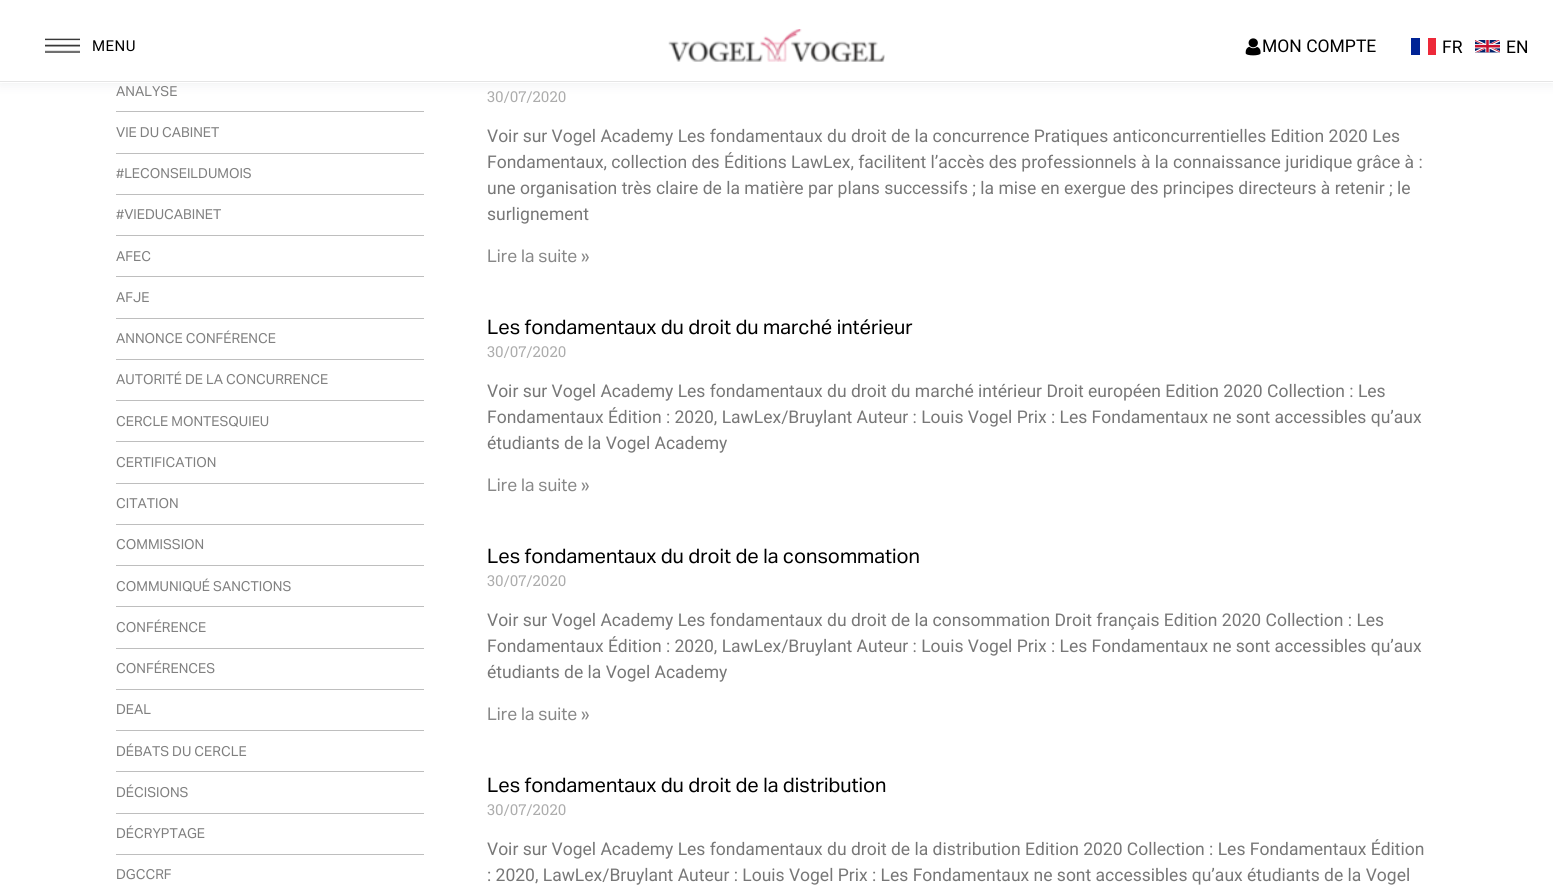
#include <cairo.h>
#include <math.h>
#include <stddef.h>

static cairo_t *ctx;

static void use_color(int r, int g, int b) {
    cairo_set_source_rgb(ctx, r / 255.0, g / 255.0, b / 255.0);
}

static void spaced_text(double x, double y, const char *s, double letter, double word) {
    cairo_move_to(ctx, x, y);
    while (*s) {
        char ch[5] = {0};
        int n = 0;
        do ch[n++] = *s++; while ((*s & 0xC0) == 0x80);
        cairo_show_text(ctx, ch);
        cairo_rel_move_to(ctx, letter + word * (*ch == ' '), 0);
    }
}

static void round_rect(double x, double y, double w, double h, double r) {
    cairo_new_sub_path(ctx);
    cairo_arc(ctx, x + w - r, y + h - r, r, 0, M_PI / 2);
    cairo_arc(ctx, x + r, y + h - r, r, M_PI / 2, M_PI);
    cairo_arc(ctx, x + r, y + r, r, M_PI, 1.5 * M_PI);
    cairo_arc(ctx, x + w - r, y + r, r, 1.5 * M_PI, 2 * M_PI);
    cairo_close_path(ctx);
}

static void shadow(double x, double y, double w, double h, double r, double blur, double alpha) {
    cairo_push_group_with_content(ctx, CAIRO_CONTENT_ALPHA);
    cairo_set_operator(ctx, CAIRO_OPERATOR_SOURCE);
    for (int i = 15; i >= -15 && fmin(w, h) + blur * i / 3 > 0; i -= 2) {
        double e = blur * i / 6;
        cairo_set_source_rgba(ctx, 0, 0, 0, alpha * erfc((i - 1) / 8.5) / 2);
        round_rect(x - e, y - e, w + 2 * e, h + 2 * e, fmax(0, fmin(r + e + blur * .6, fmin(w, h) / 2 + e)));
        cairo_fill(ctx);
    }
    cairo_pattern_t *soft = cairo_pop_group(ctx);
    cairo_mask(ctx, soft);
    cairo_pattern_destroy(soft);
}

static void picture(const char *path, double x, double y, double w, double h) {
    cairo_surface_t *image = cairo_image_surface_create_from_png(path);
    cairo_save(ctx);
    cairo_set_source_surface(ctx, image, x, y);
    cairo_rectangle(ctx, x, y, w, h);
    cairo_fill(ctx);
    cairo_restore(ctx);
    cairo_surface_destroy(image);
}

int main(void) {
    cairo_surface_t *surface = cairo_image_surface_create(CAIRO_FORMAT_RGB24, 1553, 888);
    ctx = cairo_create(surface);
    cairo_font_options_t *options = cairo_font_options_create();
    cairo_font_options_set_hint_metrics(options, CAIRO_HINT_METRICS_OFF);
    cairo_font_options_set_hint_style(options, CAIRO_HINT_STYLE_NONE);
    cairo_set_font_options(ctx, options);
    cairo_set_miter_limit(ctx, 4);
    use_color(255, 255, 255);
    cairo_paint(ctx);
    use_color(36, 50, 66);
    shadow(0, 3, 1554, 82, 0, 6, 0.07);
    use_color(255, 255, 255);
    cairo_rectangle(ctx, 0, 0, 1553, 83);
    cairo_fill(ctx);
    use_color(229, 229, 229);
    cairo_rectangle(ctx, 0, 81, 1553, 1);
    cairo_fill(ctx);
    picture("img1.png", 45, 38, 35, 15);
    cairo_select_font_face(ctx, "Roboto", CAIRO_FONT_SLANT_NORMAL, CAIRO_FONT_WEIGHT_NORMAL);
    cairo_set_font_size(ctx, 15);
    use_color(0, 0, 0);
    spaced_text(92, 51, "MENU", 0.5, 0);
    picture("img2.png", 668, 29, 217, 33);
    picture("img3.png", 1245, 38, 16, 18);
    cairo_set_font_size(ctx, 17.5);
    cairo_move_to(ctx, 1262, 52);
    cairo_show_text(ctx, "MON COMPTE");
    use_color(237, 41, 57);
    cairo_rectangle(ctx, 1428, 38, 8, 17);
    cairo_fill(ctx);
    use_color(0, 35, 149);
    cairo_rectangle(ctx, 1411, 38, 9, 17);
    cairo_fill(ctx);
    use_color(0, 0, 0);
    cairo_move_to(ctx, 1442, 53);
    cairo_show_text(ctx, "FR");
    picture("img4.png", 1475, 40, 25, 13);
    cairo_move_to(ctx, 1506, 53);
    cairo_show_text(ctx, "EN");
    use_color(190, 190, 190);
    cairo_rectangle(ctx, 116, 111, 308, 1);
    cairo_fill(ctx);
    cairo_select_font_face(ctx, "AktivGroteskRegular", CAIRO_FONT_SLANT_NORMAL, CAIRO_FONT_WEIGHT_NORMAL);
    cairo_set_font_size(ctx, 13.75);
    use_color(128, 128, 128);
    cairo_move_to(ctx, 116, 96);
    cairo_show_text(ctx, "ANALYSE");
    use_color(190, 190, 190);
    cairo_rectangle(ctx, 116, 153, 308, 1);
    cairo_fill(ctx);
    use_color(128, 128, 128);
    cairo_move_to(ctx, 116, 137);
    cairo_show_text(ctx, "VIE DU CABINET");
    use_color(190, 190, 190);
    cairo_rectangle(ctx, 116, 194, 308, 1);
    cairo_fill(ctx);
    use_color(128, 128, 128);
    cairo_move_to(ctx, 116, 178);
    cairo_show_text(ctx, "#LECONSEILDUMOIS");
    use_color(190, 190, 190);
    cairo_rectangle(ctx, 116, 235, 308, 1);
    cairo_fill(ctx);
    use_color(128, 128, 128);
    cairo_move_to(ctx, 116, 219);
    cairo_show_text(ctx, "#VIEDUCABINET");
    use_color(190, 190, 190);
    cairo_rectangle(ctx, 116, 276, 308, 1);
    cairo_fill(ctx);
    use_color(128, 128, 128);
    cairo_move_to(ctx, 116, 261);
    cairo_show_text(ctx, "AFEC");
    use_color(190, 190, 190);
    cairo_rectangle(ctx, 116, 318, 308, 1);
    cairo_fill(ctx);
    use_color(128, 128, 128);
    cairo_move_to(ctx, 116, 302);
    cairo_show_text(ctx, "AFJE");
    use_color(190, 190, 190);
    cairo_rectangle(ctx, 116, 359, 308, 1);
    cairo_fill(ctx);
    use_color(128, 128, 128);
    cairo_move_to(ctx, 116, 343);
    cairo_show_text(ctx, "ANNONCE CONFÉRENCE");
    use_color(190, 190, 190);
    cairo_rectangle(ctx, 116, 400, 308, 1);
    cairo_fill(ctx);
    use_color(128, 128, 128);
    cairo_move_to(ctx, 116, 384);
    cairo_show_text(ctx, "AUTORITÉ DE LA CONCURRENCE");
    use_color(190, 190, 190);
    cairo_rectangle(ctx, 116, 441, 308, 1);
    cairo_fill(ctx);
    use_color(128, 128, 128);
    cairo_move_to(ctx, 116, 426);
    cairo_show_text(ctx, "CERCLE MONTESQUIEU");
    use_color(190, 190, 190);
    cairo_rectangle(ctx, 116, 483, 308, 1);
    cairo_fill(ctx);
    use_color(128, 128, 128);
    cairo_move_to(ctx, 116, 467);
    cairo_show_text(ctx, "CERTIFICATION");
    use_color(190, 190, 190);
    cairo_rectangle(ctx, 116, 524, 308, 1);
    cairo_fill(ctx);
    use_color(128, 128, 128);
    cairo_move_to(ctx, 116, 508);
    cairo_show_text(ctx, "CITATION");
    use_color(190, 190, 190);
    cairo_rectangle(ctx, 116, 565, 308, 1);
    cairo_fill(ctx);
    use_color(128, 128, 128);
    cairo_move_to(ctx, 116, 549);
    cairo_show_text(ctx, "COMMISSION");
    use_color(190, 190, 190);
    cairo_rectangle(ctx, 116, 606, 308, 1);
    cairo_fill(ctx);
    use_color(128, 128, 128);
    cairo_move_to(ctx, 116, 591);
    cairo_show_text(ctx, "COMMUNIQUÉ SANCTIONS");
    use_color(190, 190, 190);
    cairo_rectangle(ctx, 116, 648, 308, 1);
    cairo_fill(ctx);
    use_color(128, 128, 128);
    cairo_move_to(ctx, 116, 632);
    cairo_show_text(ctx, "CONFÉRENCE");
    use_color(190, 190, 190);
    cairo_rectangle(ctx, 116, 689, 308, 1);
    cairo_fill(ctx);
    use_color(128, 128, 128);
    cairo_move_to(ctx, 116, 673);
    cairo_show_text(ctx, "CONFÉRENCES");
    use_color(190, 190, 190);
    cairo_rectangle(ctx, 116, 730, 308, 1);
    cairo_fill(ctx);
    use_color(128, 128, 128);
    cairo_move_to(ctx, 116, 714);
    cairo_show_text(ctx, "DEAL");
    use_color(190, 190, 190);
    cairo_rectangle(ctx, 116, 771, 308, 1);
    cairo_fill(ctx);
    use_color(128, 128, 128);
    cairo_move_to(ctx, 116, 756);
    cairo_show_text(ctx, "DÉBATS DU CERCLE");
    use_color(190, 190, 190);
    cairo_rectangle(ctx, 116, 813, 308, 1);
    cairo_fill(ctx);
    use_color(128, 128, 128);
    cairo_move_to(ctx, 116, 797);
    cairo_show_text(ctx, "DÉCISIONS");
    use_color(190, 190, 190);
    cairo_rectangle(ctx, 116, 854, 308, 1);
    cairo_fill(ctx);
    use_color(128, 128, 128);
    cairo_move_to(ctx, 116, 838);
    cairo_show_text(ctx, "DÉCRYPTAGE");
    cairo_move_to(ctx, 116, 879);
    cairo_show_text(ctx, "DGCCRF");
    cairo_select_font_face(ctx, "Roboto Slab", CAIRO_FONT_SLANT_NORMAL, CAIRO_FONT_WEIGHT_NORMAL);
    cairo_set_font_size(ctx, 15);
    use_color(173, 173, 173);
    cairo_move_to(ctx, 487, 102);
    cairo_show_text(ctx, "30/07/2020");
    cairo_select_font_face(ctx, "Roboto", CAIRO_FONT_SLANT_NORMAL, CAIRO_FONT_WEIGHT_NORMAL);
    cairo_set_font_size(ctx, 17.5);
    use_color(119, 119, 119);
    cairo_move_to(ctx, 487, 142);
    cairo_show_text(ctx, "Voir sur Vogel Academy Les fondamentaux du droit de la concurrence Pratiques anticoncurrentielles Edition 2020 Les");
    cairo_move_to(ctx, 487, 168);
    cairo_show_text(ctx, "Fondamentaux, collection des Éditions LawLex, facilitent l’accès des professionnels à la connaissance juridique grâce à :");
    cairo_move_to(ctx, 487, 194);
    cairo_show_text(ctx, "une organisation très claire de la matière par plans successifs ; la mise en exergue des principes directeurs à retenir ; le");
    cairo_move_to(ctx, 487, 220);
    cairo_show_text(ctx, "surlignement");
    cairo_select_font_face(ctx, "AktivGroteskRegular", CAIRO_FONT_SLANT_NORMAL, CAIRO_FONT_WEIGHT_NORMAL);
    use_color(136, 136, 136);
    cairo_move_to(ctx, 487, 262);
    cairo_show_text(ctx, "Lire la suite »");
    cairo_set_font_size(ctx, 20);
    use_color(0, 0, 0);
    cairo_move_to(ctx, 487, 334);
    cairo_show_text(ctx, "Les fondamentaux du droit du marché intérieur");
    cairo_select_font_face(ctx, "Roboto Slab", CAIRO_FONT_SLANT_NORMAL, CAIRO_FONT_WEIGHT_NORMAL);
    cairo_set_font_size(ctx, 15);
    use_color(173, 173, 173);
    cairo_move_to(ctx, 487, 357);
    cairo_show_text(ctx, "30/07/2020");
    cairo_select_font_face(ctx, "Roboto", CAIRO_FONT_SLANT_NORMAL, CAIRO_FONT_WEIGHT_NORMAL);
    cairo_set_font_size(ctx, 17.5);
    use_color(119, 119, 119);
    cairo_move_to(ctx, 487, 397);
    cairo_show_text(ctx, "Voir sur Vogel Academy Les fondamentaux du droit du marché intérieur Droit européen Edition 2020 Collection : Les");
    cairo_move_to(ctx, 487, 423);
    cairo_show_text(ctx, "Fondamentaux Édition : 2020, LawLex/Bruylant Auteur : Louis Vogel Prix : Les Fondamentaux ne sont accessibles qu’aux");
    cairo_move_to(ctx, 487, 449);
    cairo_show_text(ctx, "étudiants de la Vogel Academy");
    cairo_select_font_face(ctx, "AktivGroteskRegular", CAIRO_FONT_SLANT_NORMAL, CAIRO_FONT_WEIGHT_NORMAL);
    use_color(136, 136, 136);
    cairo_move_to(ctx, 487, 491);
    cairo_show_text(ctx, "Lire la suite »");
    cairo_set_font_size(ctx, 20);
    use_color(0, 0, 0);
    cairo_move_to(ctx, 487, 563);
    cairo_show_text(ctx, "Les fondamentaux du droit de la consommation");
    cairo_select_font_face(ctx, "Roboto Slab", CAIRO_FONT_SLANT_NORMAL, CAIRO_FONT_WEIGHT_NORMAL);
    cairo_set_font_size(ctx, 15);
    use_color(173, 173, 173);
    cairo_move_to(ctx, 487, 586);
    cairo_show_text(ctx, "30/07/2020");
    cairo_select_font_face(ctx, "Roboto", CAIRO_FONT_SLANT_NORMAL, CAIRO_FONT_WEIGHT_NORMAL);
    cairo_set_font_size(ctx, 17.5);
    use_color(119, 119, 119);
    cairo_move_to(ctx, 487, 626);
    cairo_show_text(ctx, "Voir sur Vogel Academy Les fondamentaux du droit de la consommation Droit français Edition 2020 Collection : Les");
    cairo_move_to(ctx, 487, 652);
    cairo_show_text(ctx, "Fondamentaux Édition : 2020, LawLex/Bruylant Auteur : Louis Vogel Prix : Les Fondamentaux ne sont accessibles qu’aux");
    cairo_move_to(ctx, 487, 678);
    cairo_show_text(ctx, "étudiants de la Vogel Academy");
    cairo_select_font_face(ctx, "AktivGroteskRegular", CAIRO_FONT_SLANT_NORMAL, CAIRO_FONT_WEIGHT_NORMAL);
    use_color(136, 136, 136);
    cairo_move_to(ctx, 487, 720);
    cairo_show_text(ctx, "Lire la suite »");
    cairo_set_font_size(ctx, 20);
    use_color(0, 0, 0);
    cairo_move_to(ctx, 487, 792);
    cairo_show_text(ctx, "Les fondamentaux du droit de la distribution");
    cairo_select_font_face(ctx, "Roboto Slab", CAIRO_FONT_SLANT_NORMAL, CAIRO_FONT_WEIGHT_NORMAL);
    cairo_set_font_size(ctx, 15);
    use_color(173, 173, 173);
    cairo_move_to(ctx, 487, 815);
    cairo_show_text(ctx, "30/07/2020");
    cairo_select_font_face(ctx, "Roboto", CAIRO_FONT_SLANT_NORMAL, CAIRO_FONT_WEIGHT_NORMAL);
    cairo_set_font_size(ctx, 17.5);
    use_color(119, 119, 119);
    cairo_move_to(ctx, 487, 855);
    cairo_show_text(ctx, "Voir sur Vogel Academy Les fondamentaux du droit de la distribution Edition 2020 Collection : Les Fondamentaux Édition");
    cairo_move_to(ctx, 487, 881);
    cairo_show_text(ctx, ": 2020, LawLex/Bruylant Auteur : Louis Vogel Prix : Les Fondamentaux ne sont accessibles qu’aux étudiants de la Vogel");
    cairo_surface_write_to_png(surface, "result.png");
    cairo_font_options_destroy(options);
    cairo_destroy(ctx);
    cairo_surface_destroy(surface);
    return 0;
}
